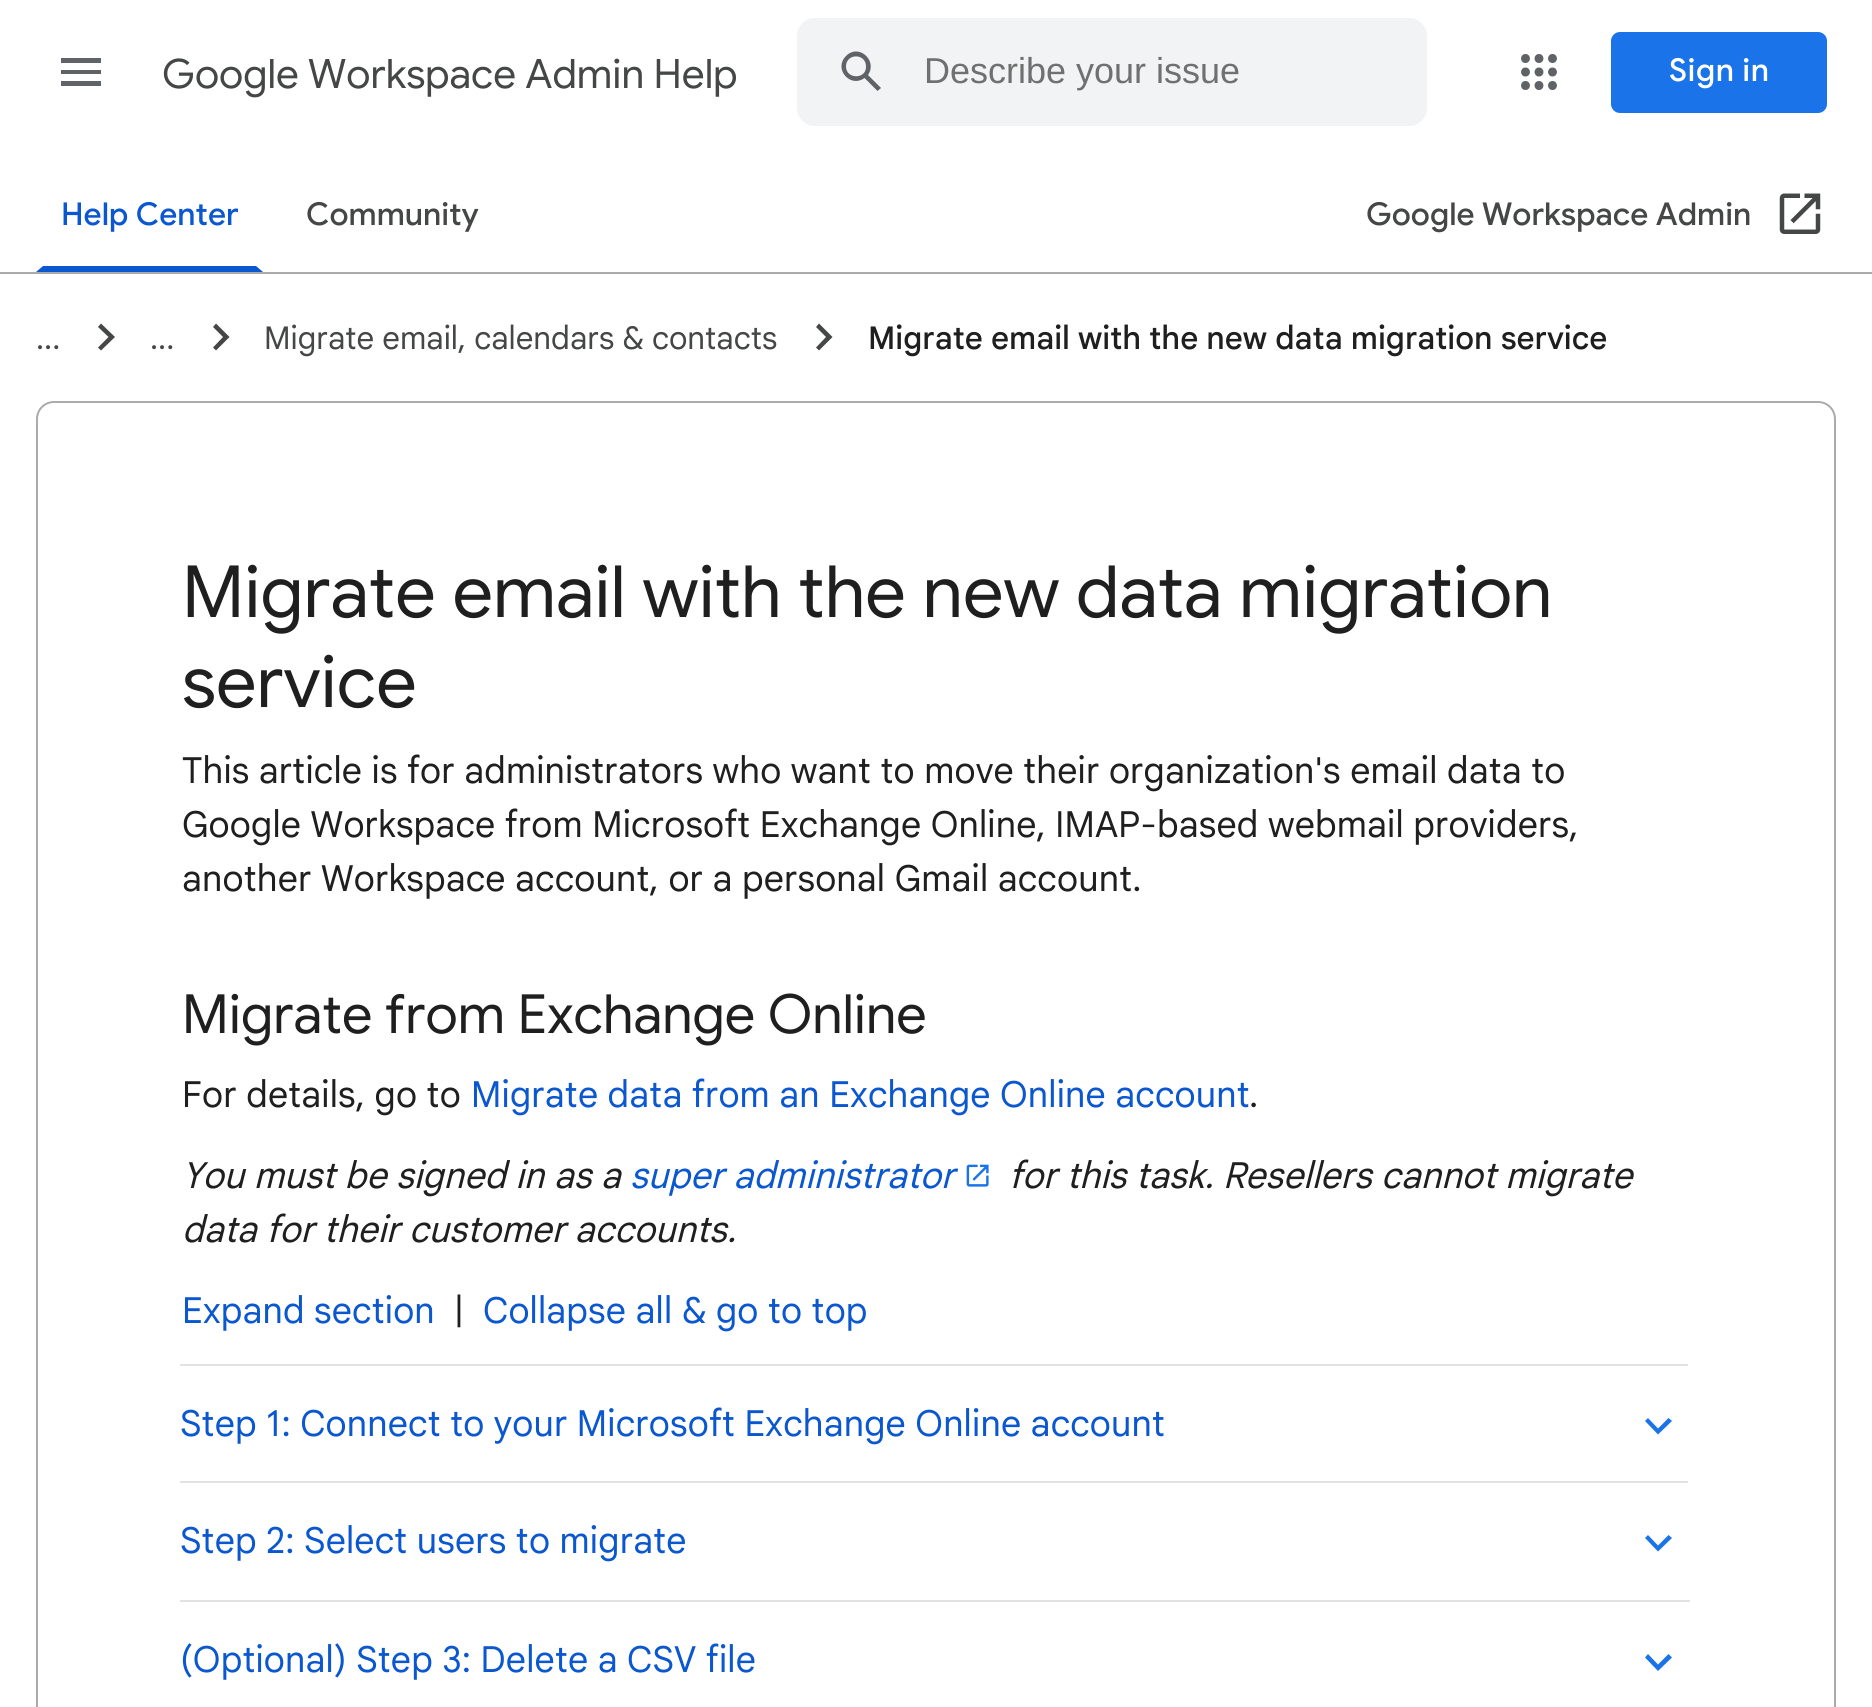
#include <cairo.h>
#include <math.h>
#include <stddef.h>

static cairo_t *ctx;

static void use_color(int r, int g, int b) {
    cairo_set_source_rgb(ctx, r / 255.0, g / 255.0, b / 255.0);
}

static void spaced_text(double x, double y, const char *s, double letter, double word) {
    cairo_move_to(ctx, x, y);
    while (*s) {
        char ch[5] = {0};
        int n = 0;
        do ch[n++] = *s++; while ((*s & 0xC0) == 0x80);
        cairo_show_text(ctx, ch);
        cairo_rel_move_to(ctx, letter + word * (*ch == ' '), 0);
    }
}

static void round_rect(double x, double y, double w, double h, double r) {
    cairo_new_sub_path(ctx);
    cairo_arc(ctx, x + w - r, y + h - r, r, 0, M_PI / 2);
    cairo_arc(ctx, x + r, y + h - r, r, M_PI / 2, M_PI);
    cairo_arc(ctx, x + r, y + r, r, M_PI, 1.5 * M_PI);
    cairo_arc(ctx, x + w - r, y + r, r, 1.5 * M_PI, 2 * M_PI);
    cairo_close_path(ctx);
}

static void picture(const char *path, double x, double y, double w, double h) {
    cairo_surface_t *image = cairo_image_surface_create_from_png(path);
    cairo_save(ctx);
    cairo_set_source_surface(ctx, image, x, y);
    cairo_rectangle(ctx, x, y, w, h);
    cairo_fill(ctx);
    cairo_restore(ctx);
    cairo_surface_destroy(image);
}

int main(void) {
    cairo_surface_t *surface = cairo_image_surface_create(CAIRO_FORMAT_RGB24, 1872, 1707);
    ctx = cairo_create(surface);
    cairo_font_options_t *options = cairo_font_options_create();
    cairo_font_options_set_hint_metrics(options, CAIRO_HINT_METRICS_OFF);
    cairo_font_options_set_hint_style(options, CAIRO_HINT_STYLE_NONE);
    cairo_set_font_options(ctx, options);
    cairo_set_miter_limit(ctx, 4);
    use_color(255, 255, 255);
    cairo_paint(ctx);
    use_color(95, 99, 104);
    cairo_new_path(ctx);
    cairo_move_to(ctx, 61, 86);
    cairo_line_to(ctx, 101, 86);
    cairo_line_to(ctx, 101, 81);
    cairo_line_to(ctx, 61, 81);
    cairo_close_path(ctx);
    cairo_move_to(ctx, 61, 74);
    cairo_line_to(ctx, 101, 74);
    cairo_line_to(ctx, 101, 70);
    cairo_line_to(ctx, 61, 70);
    cairo_close_path(ctx);
    cairo_move_to(ctx, 61, 58);
    cairo_line_to(ctx, 61, 63);
    cairo_line_to(ctx, 101, 63);
    cairo_line_to(ctx, 101, 58);
    cairo_close_path(ctx);
    cairo_fill(ctx);
    cairo_select_font_face(ctx, "Google Sans", CAIRO_FONT_SLANT_NORMAL, CAIRO_FONT_WEIGHT_NORMAL);
    cairo_set_font_size(ctx, 40.5);
    use_color(68, 71, 70);
    cairo_move_to(ctx, 162, 88);
    cairo_show_text(ctx, "Google Workspace Admin Help");
    use_color(241, 243, 244);
    round_rect(797, 18, 630, 108, 18);
    cairo_fill(ctx);
    use_color(95, 99, 104);
    cairo_new_path(ctx);
    cairo_move_to(ctx, 881, 88);
    cairo_line_to(ctx, 868, 75);
    cairo_curve_to(ctx, 878, 60.5, 858.5, 43, 846, 56);
    cairo_curve_to(ctx, 833, 69, 850.5, 88.5, 864.5, 78);
    cairo_line_to(ctx, 877.5, 91);
    cairo_close_path(ctx);
    cairo_move_to(ctx, 846, 66.5);
    cairo_curve_to(ctx, 846, 53, 866, 53, 866, 66.5);
    cairo_curve_to(ctx, 866.5, 79.5, 846, 79.5, 846, 66.5);
    cairo_close_path(ctx);
    cairo_fill(ctx);
    cairo_select_font_face(ctx, "Liberation Sans", CAIRO_FONT_SLANT_NORMAL, CAIRO_FONT_WEIGHT_NORMAL);
    cairo_set_font_size(ctx, 36);
    use_color(111, 112, 112);
    cairo_move_to(ctx, 924, 83);
    cairo_show_text(ctx, "Describe your issue");
    picture("img1.png", 1521, 54, 36, 36);
    use_color(26, 115, 232);
    round_rect(1611, 32, 216, 81, 9);
    cairo_fill(ctx);
    cairo_select_font_face(ctx, "Google Sans Medium", CAIRO_FONT_SLANT_NORMAL, CAIRO_FONT_WEIGHT_NORMAL);
    cairo_set_font_size(ctx, 31.5);
    use_color(255, 255, 255);
    spaced_text(1669, 81, "Sign in", 0.5, 0);
    use_color(169, 172, 170);
    cairo_rectangle(ctx, 0, 272, 1872, 2);
    cairo_fill(ctx);
    use_color(11, 87, 208);
    cairo_new_path(ctx);
    cairo_move_to(ctx, 263, 272);
    cairo_line_to(ctx, 36, 272);
    cairo_line_to(ctx, 43, 266);
    cairo_line_to(ctx, 256, 266);
    cairo_close_path(ctx);
    cairo_fill(ctx);
    cairo_move_to(ctx, 61, 225);
    cairo_show_text(ctx, "Help Center");
    use_color(68, 71, 70);
    cairo_move_to(ctx, 306, 225);
    cairo_show_text(ctx, "Community");
    cairo_move_to(ctx, 1366, 225);
    cairo_show_text(ctx, "Google Workspace Admin");
    picture("img2.png", 1779, 193, 42, 41);
    cairo_select_font_face(ctx, "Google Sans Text", CAIRO_FONT_SLANT_NORMAL, CAIRO_FONT_WEIGHT_NORMAL);
    cairo_move_to(ctx, 36, 349);
    cairo_show_text(ctx, "...");
    cairo_new_path(ctx);
    cairo_move_to(ctx, 98, 347.5);
    cairo_line_to(ctx, 108.5, 337);
    cairo_line_to(ctx, 98, 327);
    cairo_line_to(ctx, 101, 323.5);
    cairo_line_to(ctx, 115, 337);
    cairo_line_to(ctx, 101, 350.5);
    cairo_close_path(ctx);
    cairo_fill(ctx);
    cairo_move_to(ctx, 150, 349);
    cairo_show_text(ctx, "...");
    cairo_new_path(ctx);
    cairo_move_to(ctx, 213, 347.5);
    cairo_line_to(ctx, 223, 337);
    cairo_line_to(ctx, 213, 327);
    cairo_line_to(ctx, 216, 323.5);
    cairo_line_to(ctx, 229.5, 337);
    cairo_line_to(ctx, 216, 350.5);
    cairo_close_path(ctx);
    cairo_fill(ctx);
    cairo_move_to(ctx, 264, 349);
    cairo_show_text(ctx, "Migrate email, calendars & contacts");
    cairo_new_path(ctx);
    cairo_move_to(ctx, 816, 347.5);
    cairo_line_to(ctx, 826, 337);
    cairo_line_to(ctx, 816, 327);
    cairo_line_to(ctx, 819, 323.5);
    cairo_line_to(ctx, 832.5, 337);
    cairo_line_to(ctx, 819, 350.5);
    cairo_close_path(ctx);
    cairo_fill(ctx);
    cairo_select_font_face(ctx, "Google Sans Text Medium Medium", CAIRO_FONT_SLANT_NORMAL, CAIRO_FONT_WEIGHT_NORMAL);
    use_color(31, 31, 31);
    cairo_move_to(ctx, 868, 349);
    cairo_show_text(ctx, "Migrate email with the new data migration service");
    round_rect(37, 402, 1798, 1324, 17);
    use_color(169, 172, 170);
    cairo_stroke(ctx);
    cairo_select_font_face(ctx, "Google Sans", CAIRO_FONT_SLANT_NORMAL, CAIRO_FONT_WEIGHT_NORMAL);
    cairo_set_font_size(ctx, 72);
    use_color(31, 31, 31);
    cairo_move_to(ctx, 182, 617);
    cairo_show_text(ctx, "Migrate email with the new data migration");
    cairo_move_to(ctx, 182, 707);
    cairo_show_text(ctx, "service");
    cairo_select_font_face(ctx, "Google Sans Text", CAIRO_FONT_SLANT_NORMAL, CAIRO_FONT_WEIGHT_NORMAL);
    cairo_set_font_size(ctx, 36);
    spaced_text(182, 783, "This article is for administrators who want to move their organization's email data to", 0.18, 0);
    spaced_text(182, 837, "Google Workspace from Microsoft Exchange Online, IMAP-based webmail providers,", 0.18, 0);
    spaced_text(182, 891, "another Workspace account, or a personal Gmail account.", 0.18, 0);
    cairo_select_font_face(ctx, "Google Sans", CAIRO_FONT_SLANT_NORMAL, CAIRO_FONT_WEIGHT_NORMAL);
    cairo_set_font_size(ctx, 54);
    cairo_move_to(ctx, 182, 1033);
    cairo_show_text(ctx, "Migrate from Exchange Online");
    cairo_select_font_face(ctx, "Google Sans Text", CAIRO_FONT_SLANT_NORMAL, CAIRO_FONT_WEIGHT_NORMAL);
    cairo_set_font_size(ctx, 36);
    spaced_text(182, 1107, "For details, go to", 0.18, 0);
    use_color(11, 87, 208);
    spaced_text(471, 1107, "Migrate data from an Exchange Online account", 0.18, 0);
    use_color(31, 31, 31);
    spaced_text(1249, 1107, ".", 0.18, 0);
    cairo_select_font_face(ctx, "Google Sans Text", CAIRO_FONT_SLANT_ITALIC, CAIRO_FONT_WEIGHT_NORMAL);
    spaced_text(182, 1188, "You must be signed in as a", 0.18, 0);
    use_color(11, 87, 208);
    spaced_text(630, 1188, "super administrator", 0.18, 0);
    picture("img3.png", 966, 1164, 23, 23);
    use_color(31, 31, 31);
    spaced_text(1009, 1188, "for this task. Resellers cannot migrate", 0.18, 0);
    spaced_text(182, 1242, "data for their customer accounts.", 0.18, 0);
    cairo_select_font_face(ctx, "Google Sans Text", CAIRO_FONT_SLANT_NORMAL, CAIRO_FONT_WEIGHT_NORMAL);
    use_color(11, 87, 208);
    spaced_text(182, 1323, "Expand section", 0.18, 0);
    use_color(31, 31, 31);
    spaced_text(454, 1323, "|", 0.18, 0);
    use_color(11, 87, 208);
    spaced_text(483, 1323, "Collapse all & go to top", 0.18, 0);
    use_color(225, 227, 225);
    cairo_rectangle(ctx, 180, 1364, 1508, 2);
    cairo_fill(ctx);
    use_color(11, 87, 208);
    spaced_text(180, 1436, "Step 1: Connect to your Microsoft Exchange Online account", 0.18, 0);
    use_color(26, 115, 232);
    cairo_new_path(ctx);
    cairo_move_to(ctx, 1648, 1418);
    cairo_line_to(ctx, 1658, 1428.5);
    cairo_line_to(ctx, 1668.5, 1418);
    cairo_line_to(ctx, 1672, 1421);
    cairo_line_to(ctx, 1658, 1434.5);
    cairo_line_to(ctx, 1645, 1421);
    cairo_close_path(ctx);
    cairo_fill(ctx);
    use_color(225, 227, 225);
    cairo_rectangle(ctx, 180, 1600, 1510, 2);
    cairo_fill(ctx);
    cairo_rectangle(ctx, 180, 1481, 1508, 2);
    cairo_fill(ctx);
    use_color(11, 87, 208);
    spaced_text(180, 1553, "Step 2: Select users to migrate", 0.18, 0);
    use_color(26, 115, 232);
    cairo_new_path(ctx);
    cairo_move_to(ctx, 1648, 1535);
    cairo_line_to(ctx, 1658, 1545.5);
    cairo_line_to(ctx, 1668.5, 1535);
    cairo_line_to(ctx, 1672, 1538);
    cairo_line_to(ctx, 1658, 1551.5);
    cairo_line_to(ctx, 1645, 1538);
    cairo_close_path(ctx);
    cairo_fill(ctx);
    use_color(11, 87, 208);
    spaced_text(180, 1672, "(Optional) Step 3: Delete a CSV file", 0.18, 0);
    use_color(26, 115, 232);
    cairo_new_path(ctx);
    cairo_move_to(ctx, 1648, 1654);
    cairo_line_to(ctx, 1658, 1664.5);
    cairo_line_to(ctx, 1668.5, 1654);
    cairo_line_to(ctx, 1672, 1657.5);
    cairo_line_to(ctx, 1658, 1671);
    cairo_line_to(ctx, 1645, 1657.5);
    cairo_close_path(ctx);
    cairo_fill(ctx);
    cairo_surface_write_to_png(surface, "result.png");
    cairo_font_options_destroy(options);
    cairo_destroy(ctx);
    cairo_surface_destroy(surface);
    return 0;
}
